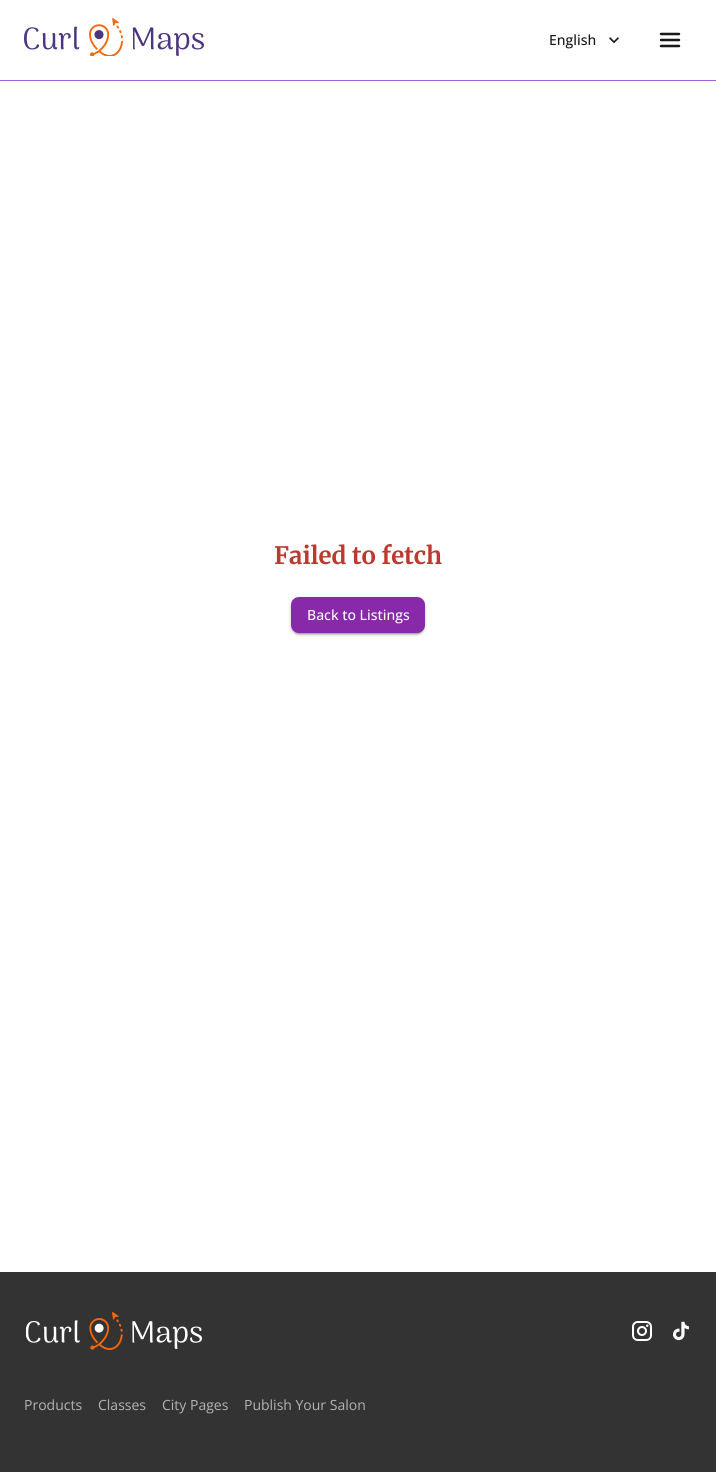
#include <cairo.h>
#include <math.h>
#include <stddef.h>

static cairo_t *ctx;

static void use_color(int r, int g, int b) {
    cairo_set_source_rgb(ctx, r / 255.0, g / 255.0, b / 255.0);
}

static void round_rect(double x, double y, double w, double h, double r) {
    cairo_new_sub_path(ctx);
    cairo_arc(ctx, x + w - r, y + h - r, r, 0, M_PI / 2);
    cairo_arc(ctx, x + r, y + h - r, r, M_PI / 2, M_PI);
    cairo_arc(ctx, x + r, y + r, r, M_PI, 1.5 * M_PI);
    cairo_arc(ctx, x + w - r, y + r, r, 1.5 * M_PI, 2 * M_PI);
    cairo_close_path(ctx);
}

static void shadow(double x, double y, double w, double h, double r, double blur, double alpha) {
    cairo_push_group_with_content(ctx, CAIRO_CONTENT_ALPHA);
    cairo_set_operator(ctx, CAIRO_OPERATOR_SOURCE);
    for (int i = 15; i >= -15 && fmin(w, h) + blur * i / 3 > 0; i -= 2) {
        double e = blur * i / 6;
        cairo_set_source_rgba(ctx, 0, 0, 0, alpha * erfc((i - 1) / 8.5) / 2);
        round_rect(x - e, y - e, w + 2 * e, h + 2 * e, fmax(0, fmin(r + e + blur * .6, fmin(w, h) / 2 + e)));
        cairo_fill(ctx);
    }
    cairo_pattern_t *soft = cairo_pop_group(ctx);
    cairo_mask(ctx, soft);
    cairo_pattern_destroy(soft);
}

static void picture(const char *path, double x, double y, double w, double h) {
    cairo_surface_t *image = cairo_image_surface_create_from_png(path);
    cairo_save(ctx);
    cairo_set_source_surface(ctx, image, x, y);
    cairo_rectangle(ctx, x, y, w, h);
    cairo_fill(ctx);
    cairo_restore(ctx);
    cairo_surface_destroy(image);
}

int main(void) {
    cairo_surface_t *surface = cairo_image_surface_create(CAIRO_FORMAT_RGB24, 716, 1472);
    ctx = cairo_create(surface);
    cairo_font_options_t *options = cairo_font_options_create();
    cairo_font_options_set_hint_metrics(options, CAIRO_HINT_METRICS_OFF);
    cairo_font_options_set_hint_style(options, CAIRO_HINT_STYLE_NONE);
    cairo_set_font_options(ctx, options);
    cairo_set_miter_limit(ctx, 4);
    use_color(255, 255, 255);
    cairo_paint(ctx);
    use_color(161, 95, 214);
    cairo_rectangle(ctx, 0, 80, 716, 1);
    cairo_fill(ctx);
    picture("img1.png", 24, 18, 180, 38);
    cairo_select_font_face(ctx, "Open Sans Medium", CAIRO_FONT_SLANT_NORMAL, CAIRO_FONT_WEIGHT_NORMAL);
    cairo_set_font_size(ctx, 14);
    use_color(25, 25, 25);
    cairo_move_to(ctx, 549, 45);
    cairo_show_text(ctx, "English");
    picture("img2.png", 609, 37, 10, 7);
    cairo_new_path(ctx);
    cairo_move_to(ctx, 661, 40);
    cairo_line_to(ctx, 679, 40);
    cairo_move_to(ctx, 661, 34);
    cairo_line_to(ctx, 679, 34);
    cairo_move_to(ctx, 661, 46);
    cairo_line_to(ctx, 679, 46);
    cairo_set_line_width(ctx, 2.5);
    cairo_set_line_cap(ctx, CAIRO_LINE_CAP_ROUND);
    cairo_set_line_join(ctx, CAIRO_LINE_JOIN_ROUND);
    cairo_stroke(ctx);
    cairo_select_font_face(ctx, "Merriweather", CAIRO_FONT_SLANT_NORMAL, CAIRO_FONT_WEIGHT_BOLD);
    cairo_set_font_size(ctx, 24);
    use_color(187, 58, 48);
    cairo_move_to(ctx, 274, 564);
    cairo_show_text(ctx, "Failed to fetch");
    use_color(0, 0, 0);
    shadow(291, 598, 134, 36, 8, 2.5, 0.12);
    shadow(291, 599, 134, 36, 8, 1, 0.14);
    shadow(293, 602, 130, 32, 6, 0.5, 0.2);
    use_color(135, 41, 168);
    round_rect(291, 597, 134, 36, 8);
    cairo_fill(ctx);
    cairo_select_font_face(ctx, "Open Sans Medium", CAIRO_FONT_SLANT_NORMAL, CAIRO_FONT_WEIGHT_NORMAL);
    cairo_set_font_size(ctx, 14);
    use_color(252, 252, 252);
    cairo_move_to(ctx, 307, 620);
    cairo_show_text(ctx, "Back to Listings");
    use_color(51, 51, 51);
    cairo_rectangle(ctx, 0, 1272, 716, 200);
    cairo_fill(ctx);
    picture("img3.png", 26, 1312, 176, 38);
    picture("img4.png", 632, 1321, 20, 20);
    picture("img5.png", 673, 1321, 16, 20);
    cairo_select_font_face(ctx, "Open Sans", CAIRO_FONT_SLANT_NORMAL, CAIRO_FONT_WEIGHT_NORMAL);
    use_color(179, 179, 179);
    cairo_move_to(ctx, 24, 1410);
    cairo_show_text(ctx, "Products");
    cairo_move_to(ctx, 98, 1410);
    cairo_show_text(ctx, "Classes");
    cairo_move_to(ctx, 162, 1410);
    cairo_show_text(ctx, "City Pages");
    cairo_move_to(ctx, 244, 1410);
    cairo_show_text(ctx, "Publish Your Salon");
    cairo_surface_write_to_png(surface, "result.png");
    cairo_font_options_destroy(options);
    cairo_destroy(ctx);
    cairo_surface_destroy(surface);
    return 0;
}
